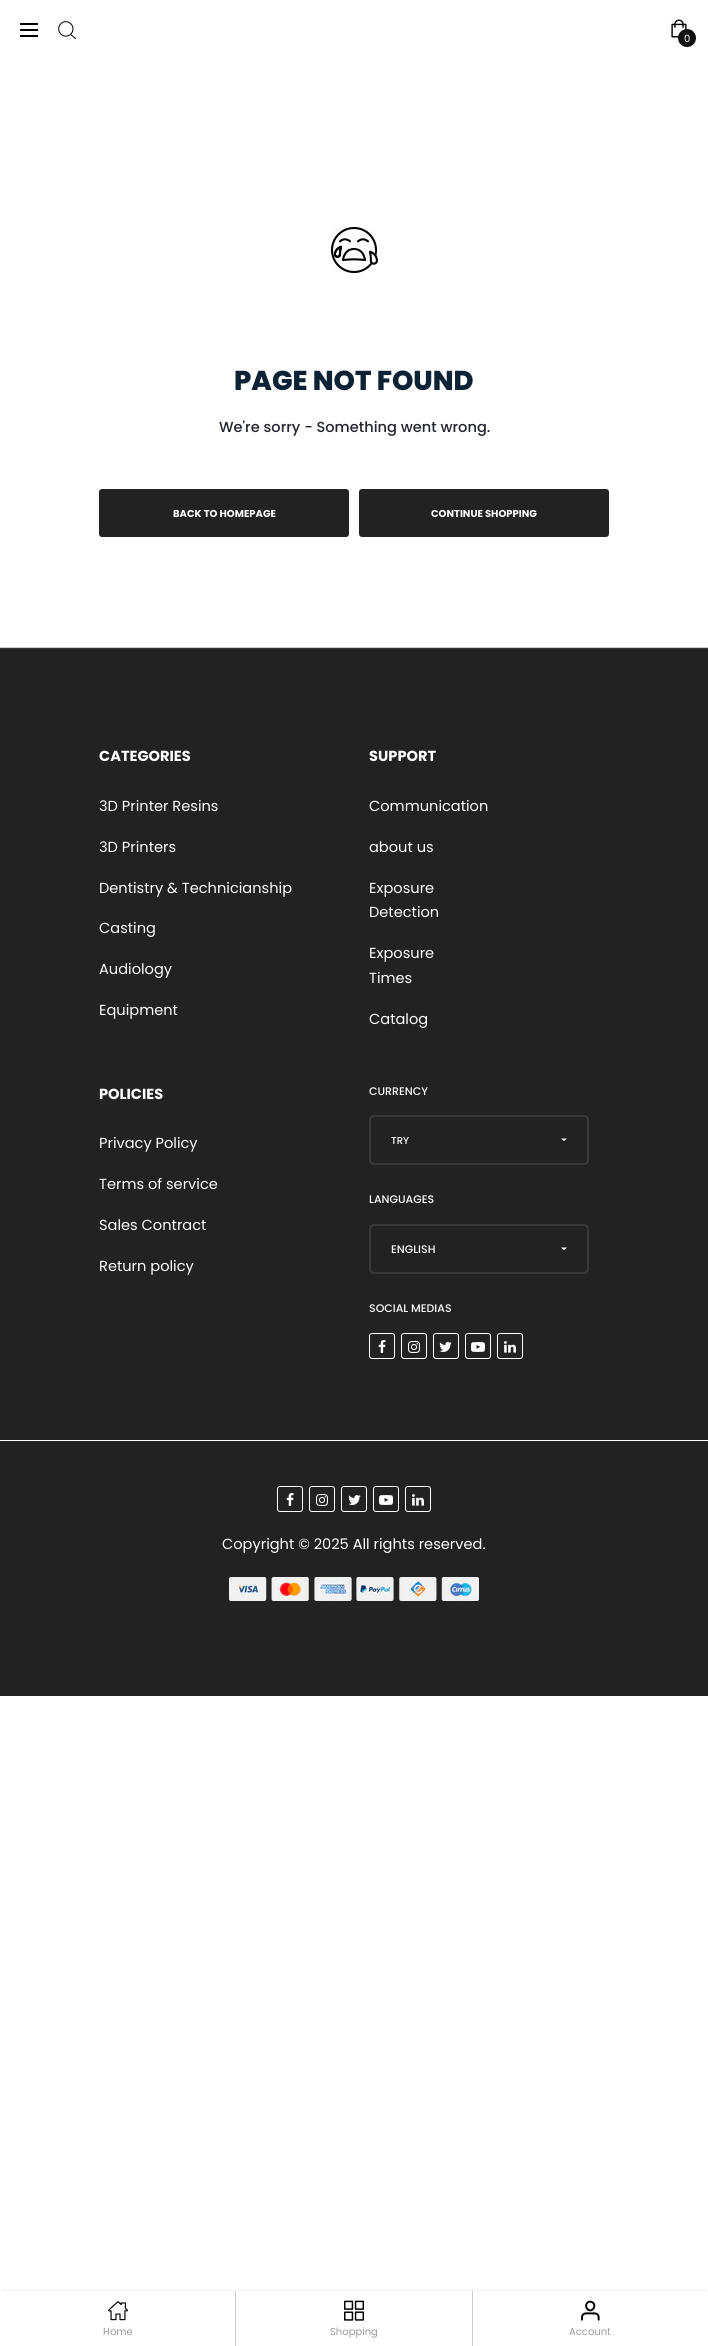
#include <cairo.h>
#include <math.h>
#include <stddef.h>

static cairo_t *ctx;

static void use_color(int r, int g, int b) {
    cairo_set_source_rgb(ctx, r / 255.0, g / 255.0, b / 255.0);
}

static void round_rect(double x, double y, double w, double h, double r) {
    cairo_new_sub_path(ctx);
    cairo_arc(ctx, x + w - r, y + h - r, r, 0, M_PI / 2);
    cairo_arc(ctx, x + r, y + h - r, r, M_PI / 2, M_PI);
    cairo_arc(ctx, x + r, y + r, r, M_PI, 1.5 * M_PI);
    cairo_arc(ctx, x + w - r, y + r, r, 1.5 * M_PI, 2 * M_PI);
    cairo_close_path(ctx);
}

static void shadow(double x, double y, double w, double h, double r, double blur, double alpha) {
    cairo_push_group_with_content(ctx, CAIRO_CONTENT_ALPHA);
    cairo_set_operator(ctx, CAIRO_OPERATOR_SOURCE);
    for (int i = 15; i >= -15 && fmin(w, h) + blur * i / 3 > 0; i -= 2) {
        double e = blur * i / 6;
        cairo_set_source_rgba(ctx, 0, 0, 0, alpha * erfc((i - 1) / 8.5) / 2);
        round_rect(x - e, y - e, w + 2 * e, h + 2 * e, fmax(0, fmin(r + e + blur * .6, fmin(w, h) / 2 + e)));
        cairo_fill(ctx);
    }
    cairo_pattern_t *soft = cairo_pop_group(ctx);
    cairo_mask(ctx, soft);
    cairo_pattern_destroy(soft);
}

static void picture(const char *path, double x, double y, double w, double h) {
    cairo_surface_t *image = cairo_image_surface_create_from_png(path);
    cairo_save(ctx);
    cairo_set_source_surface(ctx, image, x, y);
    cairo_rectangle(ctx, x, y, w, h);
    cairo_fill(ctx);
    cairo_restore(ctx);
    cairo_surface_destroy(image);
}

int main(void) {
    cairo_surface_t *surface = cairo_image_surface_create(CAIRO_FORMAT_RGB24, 708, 2346);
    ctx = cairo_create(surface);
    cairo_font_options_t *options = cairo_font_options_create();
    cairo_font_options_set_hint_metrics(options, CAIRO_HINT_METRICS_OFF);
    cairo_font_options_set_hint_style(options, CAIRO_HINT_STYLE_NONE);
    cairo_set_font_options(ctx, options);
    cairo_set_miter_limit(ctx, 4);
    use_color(255, 255, 255);
    cairo_paint(ctx);
    use_color(0, 0, 0);
    cairo_rectangle(ctx, 20, 23, 18, 2);
    cairo_fill(ctx);
    cairo_rectangle(ctx, 20, 29, 18, 2);
    cairo_fill(ctx);
    cairo_rectangle(ctx, 20, 35, 18, 2);
    cairo_fill(ctx);
    picture("img1.png", 58, 21, 18, 18);
    picture("img2.png", 671, 19, 16, 19);
    use_color(18, 16, 16);
    cairo_arc(ctx, 687, 38, 9, 0, 2 * M_PI);
    cairo_fill(ctx);
    cairo_select_font_face(ctx, "Poppins", CAIRO_FONT_SLANT_NORMAL, CAIRO_FONT_WEIGHT_NORMAL);
    cairo_set_font_size(ctx, 10);
    use_color(255, 255, 255);
    cairo_move_to(ctx, 684, 42);
    cairo_show_text(ctx, "0");
    picture("img3.png", 331, 227, 47, 46);
    cairo_select_font_face(ctx, "Poppins ExtraBold", CAIRO_FONT_SLANT_NORMAL, CAIRO_FONT_WEIGHT_NORMAL);
    cairo_set_font_size(ctx, 27.25);
    use_color(13, 34, 53);
    cairo_move_to(ctx, 234, 390);
    cairo_show_text(ctx, "PAGE NOT FOUND");
    cairo_select_font_face(ctx, "Poppins Medium", CAIRO_FONT_SLANT_NORMAL, CAIRO_FONT_WEIGHT_NORMAL);
    cairo_set_font_size(ctx, 14.6);
    use_color(35, 38, 48);
    cairo_move_to(ctx, 219, 432);
    cairo_show_text(ctx, "We're sorry - Something went wrong.");
    use_color(34, 34, 34);
    round_rect(99, 489, 250, 48, 3);
    cairo_fill(ctx);
    cairo_select_font_face(ctx, "Poppins", CAIRO_FONT_SLANT_NORMAL, CAIRO_FONT_WEIGHT_BOLD);
    cairo_set_font_size(ctx, 10);
    use_color(255, 255, 255);
    cairo_move_to(ctx, 173, 517);
    cairo_show_text(ctx, "BACK TO HOMEPAGE");
    use_color(34, 34, 34);
    round_rect(359, 489, 250, 48, 3);
    cairo_fill(ctx);
    use_color(255, 255, 255);
    cairo_move_to(ctx, 431, 517);
    cairo_show_text(ctx, "CONTINUE SHOPPING");
    use_color(34, 34, 34);
    cairo_rectangle(ctx, 0, 649, 708, 1047);
    cairo_fill(ctx);
    use_color(204, 204, 204);
    cairo_rectangle(ctx, 0, 647, 708, 1);
    cairo_fill(ctx);
    use_color(49, 49, 49);
    cairo_rectangle(ctx, 0, 648, 708, 1);
    cairo_fill(ctx);
    cairo_set_font_size(ctx, 14.6);
    use_color(255, 255, 255);
    cairo_move_to(ctx, 99, 761);
    cairo_show_text(ctx, "CATEGORIES");
    cairo_select_font_face(ctx, "Poppins", CAIRO_FONT_SLANT_NORMAL, CAIRO_FONT_WEIGHT_NORMAL);
    cairo_move_to(ctx, 99, 811);
    cairo_show_text(ctx, "3D Printer Resins");
    cairo_move_to(ctx, 99, 852);
    cairo_show_text(ctx, "3D Printers");
    cairo_move_to(ctx, 99, 893);
    cairo_show_text(ctx, "Dentistry & Technicianship");
    cairo_move_to(ctx, 99, 933);
    cairo_show_text(ctx, "Casting");
    cairo_move_to(ctx, 99, 974);
    cairo_show_text(ctx, "Audiology");
    cairo_move_to(ctx, 99, 1015);
    cairo_show_text(ctx, "Equipment");
    cairo_select_font_face(ctx, "Poppins", CAIRO_FONT_SLANT_NORMAL, CAIRO_FONT_WEIGHT_BOLD);
    cairo_move_to(ctx, 369, 761);
    cairo_show_text(ctx, "SUPPORT");
    cairo_select_font_face(ctx, "Poppins", CAIRO_FONT_SLANT_NORMAL, CAIRO_FONT_WEIGHT_NORMAL);
    cairo_move_to(ctx, 369, 811);
    cairo_show_text(ctx, "Communication");
    cairo_move_to(ctx, 369, 852);
    cairo_show_text(ctx, "about us");
    cairo_move_to(ctx, 369, 893);
    cairo_show_text(ctx, "Exposure");
    cairo_move_to(ctx, 369, 917);
    cairo_show_text(ctx, "Detection");
    cairo_move_to(ctx, 369, 958);
    cairo_show_text(ctx, "Exposure");
    cairo_move_to(ctx, 369, 983);
    cairo_show_text(ctx, "Times");
    cairo_move_to(ctx, 369, 1024);
    cairo_show_text(ctx, "Catalog");
    cairo_select_font_face(ctx, "Poppins", CAIRO_FONT_SLANT_NORMAL, CAIRO_FONT_WEIGHT_BOLD);
    cairo_move_to(ctx, 99, 1099);
    cairo_show_text(ctx, "POLICIES");
    cairo_select_font_face(ctx, "Poppins", CAIRO_FONT_SLANT_NORMAL, CAIRO_FONT_WEIGHT_NORMAL);
    cairo_move_to(ctx, 99, 1148);
    cairo_show_text(ctx, "Privacy Policy");
    cairo_move_to(ctx, 99, 1189);
    cairo_show_text(ctx, "Terms of service");
    cairo_move_to(ctx, 99, 1230);
    cairo_show_text(ctx, "Sales Contract");
    cairo_move_to(ctx, 99, 1271);
    cairo_show_text(ctx, "Return policy");
    cairo_select_font_face(ctx, "Poppins Medium", CAIRO_FONT_SLANT_NORMAL, CAIRO_FONT_WEIGHT_NORMAL);
    cairo_set_font_size(ctx, 11);
    cairo_move_to(ctx, 369, 1095);
    cairo_show_text(ctx, "CURRENCY");
    round_rect(370, 1116, 218, 48, 4);
    use_color(56, 56, 56);
    cairo_stroke(ctx);
    cairo_set_font_size(ctx, 10);
    use_color(255, 255, 255);
    cairo_move_to(ctx, 391, 1144);
    cairo_show_text(ctx, "TRY");
    cairo_new_path(ctx);
    cairo_move_to(ctx, 561, 1138.5);
    cairo_line_to(ctx, 567, 1138.5);
    cairo_line_to(ctx, 564, 1141);
    cairo_close_path(ctx);
    cairo_fill(ctx);
    cairo_set_font_size(ctx, 11);
    cairo_move_to(ctx, 369, 1203);
    cairo_show_text(ctx, "LANGUAGES");
    round_rect(370, 1225, 218, 48, 4);
    use_color(56, 56, 56);
    cairo_stroke(ctx);
    use_color(255, 255, 255);
    cairo_move_to(ctx, 391, 1253);
    cairo_show_text(ctx, "ENGLISH");
    cairo_new_path(ctx);
    cairo_move_to(ctx, 561, 1247.5);
    cairo_line_to(ctx, 567, 1247.5);
    cairo_line_to(ctx, 564, 1250);
    cairo_close_path(ctx);
    cairo_fill(ctx);
    cairo_move_to(ctx, 369, 1312);
    cairo_show_text(ctx, "SOCIAL MEDIAS");
    round_rect(369.5, 1333.5, 25, 25, 2.5);
    cairo_set_line_width(ctx, 1);
    cairo_stroke(ctx);
    picture("img4.png", 378, 1340, 8, 13);
    round_rect(401.5, 1333.5, 25, 25, 2.5);
    cairo_stroke(ctx);
    picture("img5.png", 408, 1341, 12, 12);
    round_rect(433.5, 1333.5, 25, 25, 2.5);
    cairo_stroke(ctx);
    picture("img6.png", 439, 1342, 13, 10);
    round_rect(465.5, 1333.5, 25, 25, 2.5);
    cairo_stroke(ctx);
    picture("img7.png", 471, 1342, 14, 10);
    round_rect(497.5, 1333.5, 25, 25, 2.5);
    cairo_stroke(ctx);
    picture("img8.png", 504, 1341, 12, 12);
    cairo_rectangle(ctx, 0, 1440, 708, 1);
    cairo_fill(ctx);
    round_rect(277.5, 1486.5, 25, 25, 2.5);
    cairo_stroke(ctx);
    picture("img4.png", 286, 1493, 8, 13);
    round_rect(309.5, 1486.5, 25, 25, 2.5);
    cairo_stroke(ctx);
    picture("img5.png", 316, 1494, 12, 12);
    round_rect(341.5, 1486.5, 25, 25, 2.5);
    cairo_stroke(ctx);
    picture("img6.png", 348, 1495, 13, 10);
    round_rect(373.5, 1486.5, 25, 25, 2.5);
    cairo_stroke(ctx);
    picture("img7.png", 379, 1495, 14, 10);
    round_rect(405.5, 1486.5, 25, 25, 2.5);
    cairo_stroke(ctx);
    picture("img8.png", 412, 1494, 12, 12);
    cairo_select_font_face(ctx, "Poppins", CAIRO_FONT_SLANT_NORMAL, CAIRO_FONT_WEIGHT_NORMAL);
    cairo_set_font_size(ctx, 14.6);
    cairo_move_to(ctx, 222, 1549);
    cairo_show_text(ctx, "Copyright © 2025 All rights reserved.");
    picture("img9.png", 229, 1577, 250, 24);
    cairo_save(ctx);
    cairo_rectangle(ctx, 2, 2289, 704, 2);
    cairo_clip(ctx);
    use_color(0, 0, 0);
    shadow(2, 2291, 704, 51, 0, 2.5, 0.1);
    cairo_restore(ctx);
    use_color(204, 204, 204);
    cairo_rectangle(ctx, 235, 2291, 1, 55);
    cairo_fill(ctx);
    picture("img10.png", 108, 2301, 20, 20);
    cairo_set_font_size(ctx, 10);
    use_color(155, 155, 155);
    cairo_move_to(ctx, 103, 2335);
    cairo_show_text(ctx, "Home");
    use_color(204, 204, 204);
    cairo_rectangle(ctx, 472, 2291, 1, 55);
    cairo_fill(ctx);
    picture("img11.png", 344, 2300, 20, 21);
    use_color(155, 155, 155);
    cairo_move_to(ctx, 330, 2335);
    cairo_show_text(ctx, "Shopping");
    picture("img12.png", 581, 2300, 19, 21);
    cairo_move_to(ctx, 569, 2335);
    cairo_show_text(ctx, "Account");
    cairo_surface_write_to_png(surface, "result.png");
    cairo_font_options_destroy(options);
    cairo_destroy(ctx);
    cairo_surface_destroy(surface);
    return 0;
}
